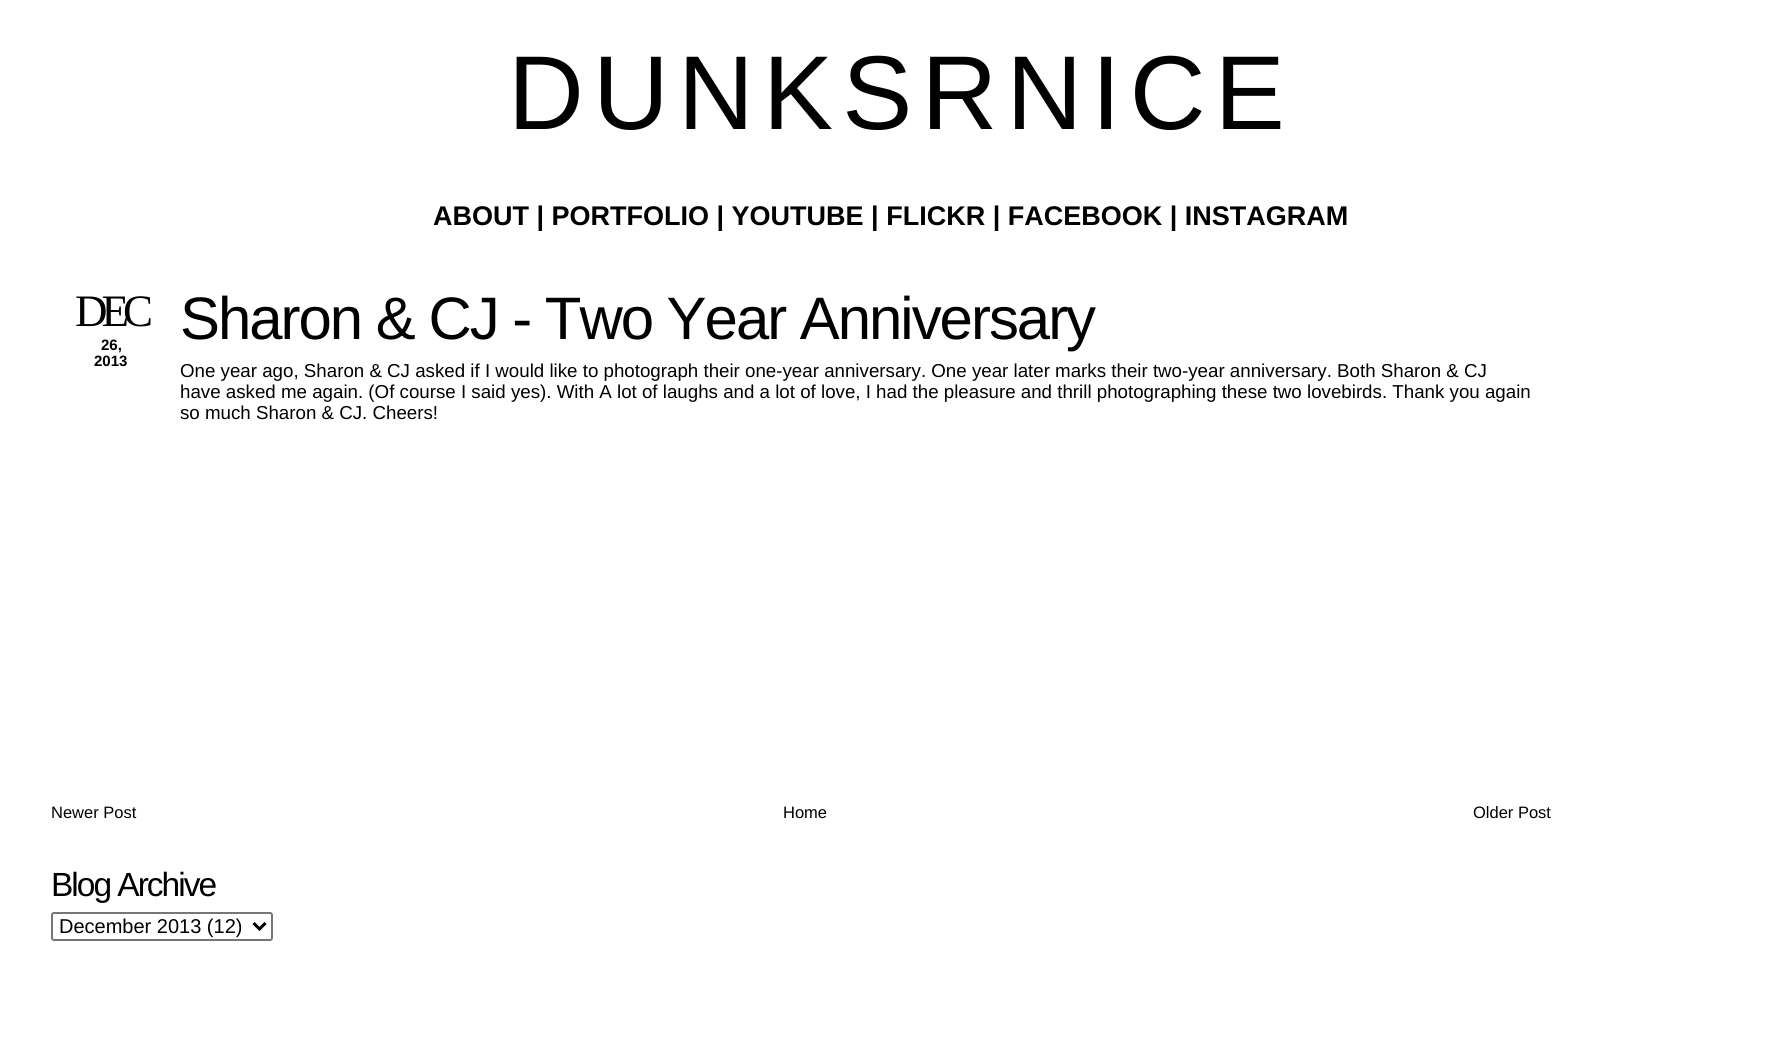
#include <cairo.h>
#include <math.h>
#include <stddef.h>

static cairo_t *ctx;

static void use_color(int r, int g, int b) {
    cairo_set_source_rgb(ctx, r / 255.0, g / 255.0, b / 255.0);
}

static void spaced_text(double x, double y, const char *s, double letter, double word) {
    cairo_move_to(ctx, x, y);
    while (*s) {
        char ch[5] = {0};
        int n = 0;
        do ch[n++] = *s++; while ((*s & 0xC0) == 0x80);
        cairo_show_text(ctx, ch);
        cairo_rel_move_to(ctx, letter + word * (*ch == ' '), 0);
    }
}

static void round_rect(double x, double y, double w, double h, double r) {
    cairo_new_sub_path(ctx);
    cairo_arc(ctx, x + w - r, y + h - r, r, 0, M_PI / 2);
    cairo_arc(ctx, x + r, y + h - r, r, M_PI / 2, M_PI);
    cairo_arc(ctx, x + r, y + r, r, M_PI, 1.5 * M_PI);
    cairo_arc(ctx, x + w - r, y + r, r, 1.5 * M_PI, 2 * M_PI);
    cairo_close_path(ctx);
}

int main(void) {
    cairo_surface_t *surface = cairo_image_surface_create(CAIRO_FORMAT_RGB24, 1782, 1058);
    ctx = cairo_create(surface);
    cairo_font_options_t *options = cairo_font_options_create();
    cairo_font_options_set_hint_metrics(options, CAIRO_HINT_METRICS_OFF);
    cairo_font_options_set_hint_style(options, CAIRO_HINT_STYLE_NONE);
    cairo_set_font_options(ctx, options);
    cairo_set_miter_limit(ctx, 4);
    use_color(255, 255, 255);
    cairo_paint(ctx);
    cairo_select_font_face(ctx, "Liberation Sans", CAIRO_FONT_SLANT_NORMAL, CAIRO_FONT_WEIGHT_NORMAL);
    cairo_set_font_size(ctx, 105);
    use_color(0, 0, 0);
    spaced_text(508, 129, "D U N K S R N I C E", -10, 0);
    cairo_select_font_face(ctx, "Liberation Sans", CAIRO_FONT_SLANT_NORMAL, CAIRO_FONT_WEIGHT_BOLD);
    cairo_set_font_size(ctx, 27);
    cairo_move_to(ctx, 433, 225);
    cairo_show_text(ctx, "ABOUT | PORTFOLIO | YOUTUBE | FLICKR | FACEBOOK | INSTAGRAM");
    cairo_select_font_face(ctx, "Liberation Serif", CAIRO_FONT_SLANT_NORMAL, CAIRO_FONT_WEIGHT_NORMAL);
    cairo_set_font_size(ctx, 45);
    spaced_text(75, 326, "DEC", -6, 0);
    cairo_select_font_face(ctx, "Liberation Sans", CAIRO_FONT_SLANT_NORMAL, CAIRO_FONT_WEIGHT_BOLD);
    cairo_set_font_size(ctx, 15);
    cairo_move_to(ctx, 101, 350);
    cairo_show_text(ctx, "26,");
    cairo_move_to(ctx, 94, 366);
    cairo_show_text(ctx, "2013");
    cairo_select_font_face(ctx, "Liberation Sans", CAIRO_FONT_SLANT_NORMAL, CAIRO_FONT_WEIGHT_NORMAL);
    cairo_set_font_size(ctx, 59.9);
    spaced_text(180, 339, "Sharon & CJ - Two Year Anniversary", -2, 0);
    cairo_set_font_size(ctx, 18.72);
    cairo_move_to(ctx, 180, 377);
    cairo_show_text(ctx, "One year ago, Sharon & CJ asked if I would like to photograph their one-year anniversary. One year later marks their two-year anniversary. Both Sharon & CJ");
    cairo_move_to(ctx, 180, 398);
    cairo_show_text(ctx, "have asked me again. (Of course I said yes). With A lot of laughs and a lot of love, I had the pleasure and thrill photographing these two lovebirds. Thank you again");
    cairo_move_to(ctx, 180, 419);
    cairo_show_text(ctx, "so much Sharon & CJ. Cheers!");
    cairo_set_font_size(ctx, 16.5);
    cairo_move_to(ctx, 51, 818);
    cairo_show_text(ctx, "Newer Post");
    cairo_move_to(ctx, 783, 818);
    cairo_show_text(ctx, "Home");
    cairo_move_to(ctx, 1473, 818);
    cairo_show_text(ctx, "Older Post");
    cairo_set_font_size(ctx, 33.5);
    spaced_text(51, 896, "Blog Archive", -2, 0);
    round_rect(52, 913, 220, 27, 2);
    use_color(118, 118, 118);
    cairo_stroke(ctx);
    cairo_new_path(ctx);
    cairo_move_to(ctx, 253.5, 923);
    cairo_line_to(ctx, 259.5, 929);
    cairo_line_to(ctx, 265.5, 923);
    use_color(0, 0, 0);
    cairo_set_line_width(ctx, 3);
    cairo_stroke(ctx);
    cairo_set_font_size(ctx, 20);
    cairo_move_to(ctx, 59, 933);
    cairo_show_text(ctx, "December 2013 (12)");
    cairo_surface_write_to_png(surface, "result.png");
    cairo_font_options_destroy(options);
    cairo_destroy(ctx);
    cairo_surface_destroy(surface);
    return 0;
}
